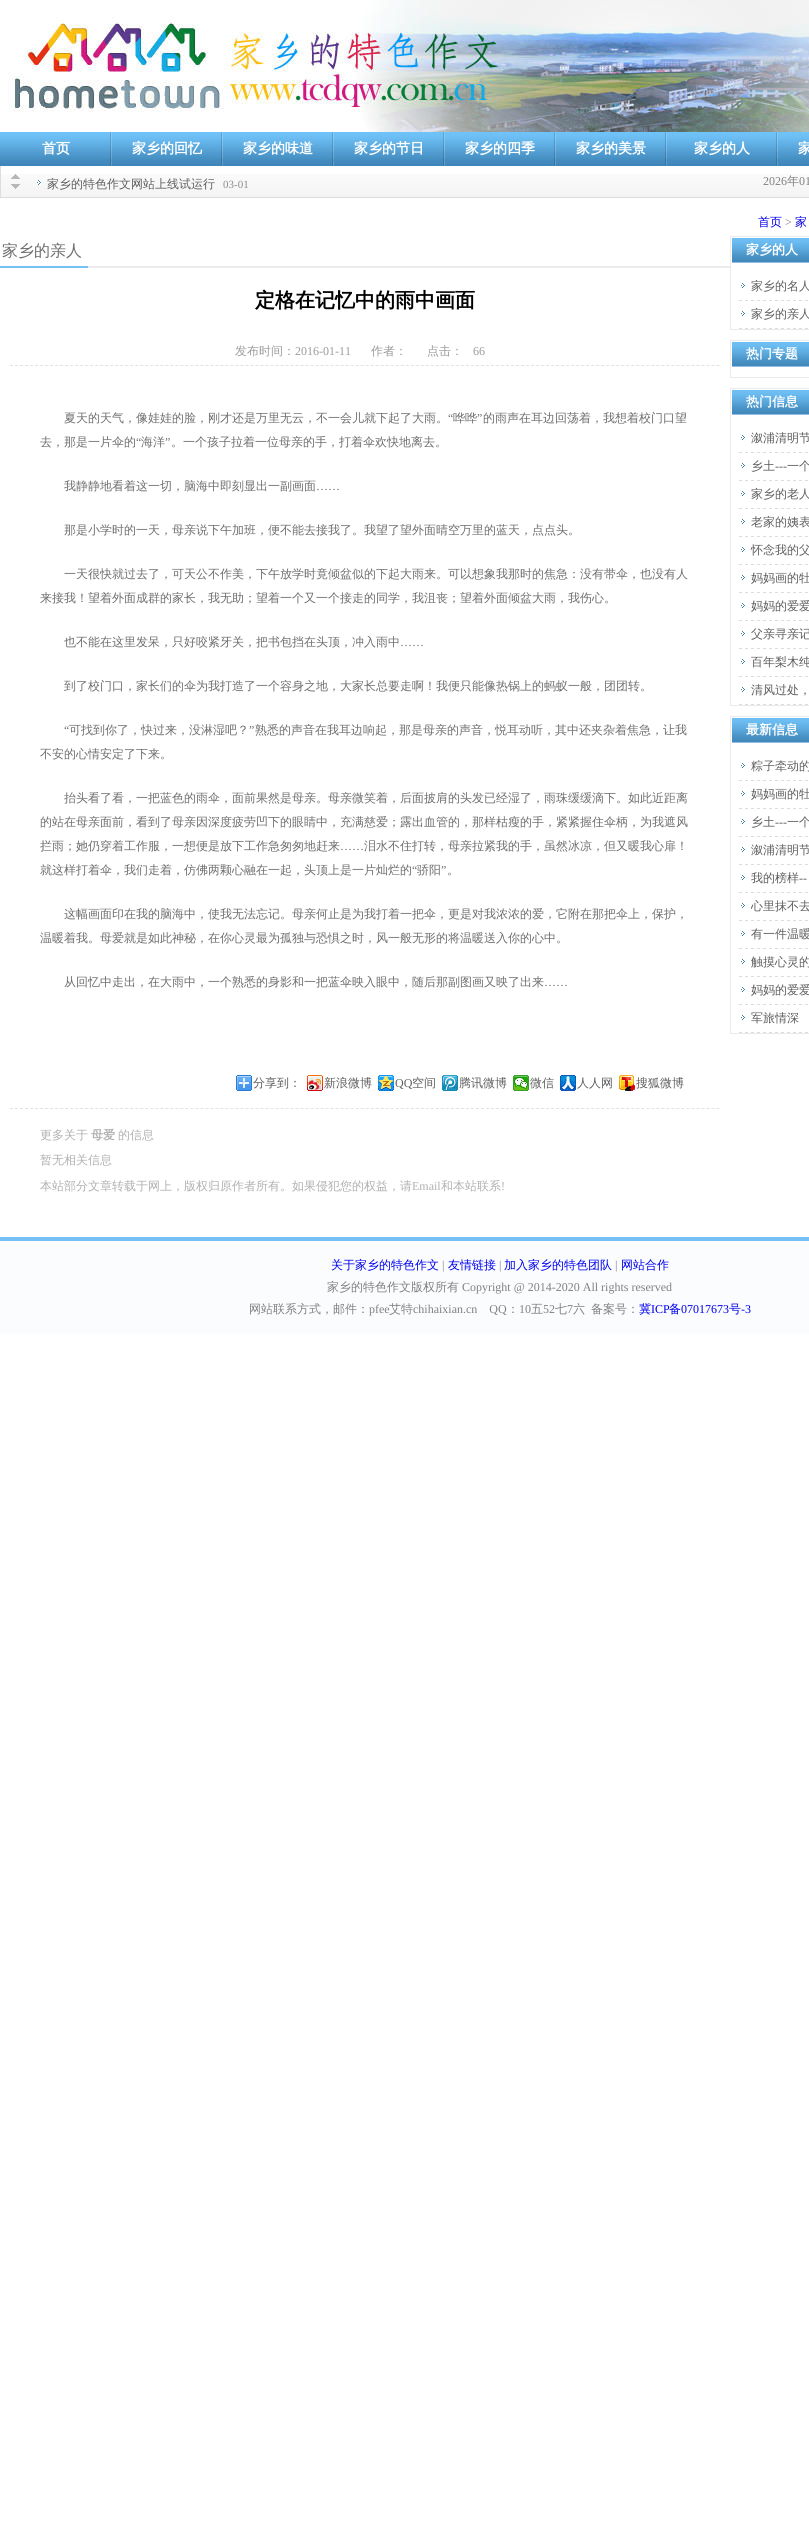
#include <cairo.h>
#include <math.h>
#include <stddef.h>

static cairo_t *ctx;

static void use_color(int r, int g, int b) {
    cairo_set_source_rgb(ctx, r / 255.0, g / 255.0, b / 255.0);
}

static void picture(const char *path, double x, double y, double w, double h) {
    cairo_surface_t *image = cairo_image_surface_create_from_png(path);
    cairo_save(ctx);
    cairo_set_source_surface(ctx, image, x, y);
    cairo_rectangle(ctx, x, y, w, h);
    cairo_fill(ctx);
    cairo_restore(ctx);
    cairo_surface_destroy(image);
}

int main(void) {
    cairo_surface_t *surface = cairo_image_surface_create(CAIRO_FORMAT_RGB24, 809, 2537);
    ctx = cairo_create(surface);
    cairo_font_options_t *options = cairo_font_options_create();
    cairo_font_options_set_hint_metrics(options, CAIRO_HINT_METRICS_OFF);
    cairo_font_options_set_hint_style(options, CAIRO_HINT_STYLE_NONE);
    cairo_set_font_options(ctx, options);
    cairo_set_miter_limit(ctx, 4);
    use_color(255, 255, 255);
    cairo_paint(ctx);
    picture("img1.png", 8, 0, 801, 132);
    picture("img2.png", 0, 132, 809, 34);
    cairo_select_font_face(ctx, "WenQuanYi Zen Hei", CAIRO_FONT_SLANT_NORMAL, CAIRO_FONT_WEIGHT_BOLD);
    cairo_set_font_size(ctx, 14);
    use_color(255, 255, 255);
    cairo_move_to(ctx, 42, 153);
    cairo_show_text(ctx, "首页");
    picture("img3.png", 110, 132, 2, 34);
    cairo_move_to(ctx, 132, 153);
    cairo_show_text(ctx, "家乡的回忆");
    picture("img3.png", 221, 132, 2, 34);
    cairo_move_to(ctx, 243, 153);
    cairo_show_text(ctx, "家乡的味道");
    picture("img3.png", 332, 132, 2, 34);
    cairo_move_to(ctx, 354, 153);
    cairo_show_text(ctx, "家乡的节日");
    picture("img3.png", 443, 132, 2, 34);
    cairo_move_to(ctx, 465, 153);
    cairo_show_text(ctx, "家乡的四季");
    picture("img3.png", 554, 132, 2, 34);
    cairo_move_to(ctx, 576, 153);
    cairo_show_text(ctx, "家乡的美景");
    picture("img3.png", 665, 132, 2, 34);
    cairo_move_to(ctx, 694, 153);
    cairo_show_text(ctx, "家乡的人");
    picture("img3.png", 776, 132, 2, 34);
    cairo_move_to(ctx, 798, 153);
    cairo_show_text(ctx, "家");
    picture("img4.png", 1, 174, 808, 23);
    use_color(221, 221, 221);
    cairo_rectangle(ctx, 0, 197, 809, 1);
    cairo_fill(ctx);
    cairo_rectangle(ctx, 0, 166, 1, 32);
    cairo_fill(ctx);
    picture("img5.png", 11, 174, 9, 5);
    picture("img6.png", 11, 184, 9, 5);
    picture("img7.png", 37, 180, 4, 5);
    cairo_select_font_face(ctx, "WenQuanYi Zen Hei Medium", CAIRO_FONT_SLANT_NORMAL, CAIRO_FONT_WEIGHT_NORMAL);
    cairo_set_font_size(ctx, 12);
    use_color(93, 93, 93);
    cairo_move_to(ctx, 47, 188);
    cairo_show_text(ctx, "家乡的特色作文网站上线试运行");
    cairo_select_font_face(ctx, "Liberation Serif", CAIRO_FONT_SLANT_NORMAL, CAIRO_FONT_WEIGHT_NORMAL);
    cairo_set_font_size(ctx, 11);
    use_color(141, 141, 141);
    cairo_move_to(ctx, 223, 188);
    cairo_show_text(ctx, "03-01");
    cairo_set_font_size(ctx, 12);
    use_color(128, 128, 128);
    cairo_move_to(ctx, 763, 185);
    cairo_show_text(ctx, "2026");
    cairo_select_font_face(ctx, "WenQuanYi Zen Hei Medium", CAIRO_FONT_SLANT_NORMAL, CAIRO_FONT_WEIGHT_NORMAL);
    cairo_move_to(ctx, 787, 185);
    cairo_show_text(ctx, "年");
    cairo_select_font_face(ctx, "Liberation Serif", CAIRO_FONT_SLANT_NORMAL, CAIRO_FONT_WEIGHT_NORMAL);
    cairo_move_to(ctx, 799, 185);
    cairo_show_text(ctx, "01");
    cairo_select_font_face(ctx, "WenQuanYi Zen Hei Medium", CAIRO_FONT_SLANT_NORMAL, CAIRO_FONT_WEIGHT_NORMAL);
    use_color(0, 0, 238);
    cairo_move_to(ctx, 758, 226);
    cairo_show_text(ctx, "首页");
    cairo_select_font_face(ctx, "Liberation Serif", CAIRO_FONT_SLANT_NORMAL, CAIRO_FONT_WEIGHT_NORMAL);
    use_color(128, 128, 128);
    cairo_move_to(ctx, 785, 226);
    cairo_show_text(ctx, ">");
    cairo_select_font_face(ctx, "WenQuanYi Zen Hei Medium", CAIRO_FONT_SLANT_NORMAL, CAIRO_FONT_WEIGHT_NORMAL);
    use_color(0, 0, 238);
    cairo_move_to(ctx, 795, 226);
    cairo_show_text(ctx, "家");
    use_color(235, 235, 235);
    cairo_rectangle(ctx, 88, 266, 642, 2);
    cairo_fill(ctx);
    use_color(117, 193, 245);
    cairo_rectangle(ctx, 0, 266, 88, 2);
    cairo_fill(ctx);
    cairo_set_font_size(ctx, 16);
    use_color(109, 109, 109);
    cairo_move_to(ctx, 2, 256);
    cairo_show_text(ctx, "家乡的亲人");
    cairo_select_font_face(ctx, "WenQuanYi Zen Hei", CAIRO_FONT_SLANT_NORMAL, CAIRO_FONT_WEIGHT_BOLD);
    cairo_set_font_size(ctx, 20);
    use_color(0, 0, 0);
    cairo_move_to(ctx, 255, 307);
    cairo_show_text(ctx, "定格在记忆中的雨中画面");
    cairo_new_path(ctx);
    cairo_move_to(ctx, 10, 365.5);
    cairo_line_to(ctx, 720, 365.5);
    use_color(223, 227, 228);
    cairo_set_line_width(ctx, 1);
    cairo_set_dash(ctx, (double[]){3, 2.01}, 2, 0);
    cairo_stroke(ctx);
    cairo_select_font_face(ctx, "WenQuanYi Zen Hei Medium", CAIRO_FONT_SLANT_NORMAL, CAIRO_FONT_WEIGHT_NORMAL);
    cairo_set_font_size(ctx, 12);
    use_color(155, 155, 155);
    cairo_move_to(ctx, 235, 355);
    cairo_show_text(ctx, "发布时间：");
    cairo_select_font_face(ctx, "Liberation Serif", CAIRO_FONT_SLANT_NORMAL, CAIRO_FONT_WEIGHT_NORMAL);
    cairo_move_to(ctx, 295, 355);
    cairo_show_text(ctx, "2016-01-11");
    cairo_select_font_face(ctx, "WenQuanYi Zen Hei Medium", CAIRO_FONT_SLANT_NORMAL, CAIRO_FONT_WEIGHT_NORMAL);
    cairo_move_to(ctx, 371, 355);
    cairo_show_text(ctx, "作者：");
    cairo_move_to(ctx, 427, 355);
    cairo_show_text(ctx, "点击：");
    cairo_select_font_face(ctx, "Liberation Serif", CAIRO_FONT_SLANT_NORMAL, CAIRO_FONT_WEIGHT_NORMAL);
    cairo_move_to(ctx, 473, 355);
    cairo_show_text(ctx, "66");
    cairo_select_font_face(ctx, "WenQuanYi Zen Hei Medium", CAIRO_FONT_SLANT_NORMAL, CAIRO_FONT_WEIGHT_NORMAL);
    use_color(109, 109, 109);
    cairo_move_to(ctx, 64, 422);
    cairo_show_text(ctx, "夏天的天气，像娃娃的脸，刚才还是万里无云，不一会儿就下起了大雨。");
    cairo_select_font_face(ctx, "Liberation Serif", CAIRO_FONT_SLANT_NORMAL, CAIRO_FONT_WEIGHT_NORMAL);
    cairo_move_to(ctx, 448, 422);
    cairo_show_text(ctx, "“");
    cairo_select_font_face(ctx, "WenQuanYi Zen Hei Medium", CAIRO_FONT_SLANT_NORMAL, CAIRO_FONT_WEIGHT_NORMAL);
    cairo_move_to(ctx, 453, 422);
    cairo_show_text(ctx, "哗哗");
    cairo_select_font_face(ctx, "Liberation Serif", CAIRO_FONT_SLANT_NORMAL, CAIRO_FONT_WEIGHT_NORMAL);
    cairo_move_to(ctx, 477, 422);
    cairo_show_text(ctx, "”");
    cairo_select_font_face(ctx, "WenQuanYi Zen Hei Medium", CAIRO_FONT_SLANT_NORMAL, CAIRO_FONT_WEIGHT_NORMAL);
    cairo_move_to(ctx, 483, 422);
    cairo_show_text(ctx, "的雨声在耳边回荡着，我想着校门口望");
    cairo_move_to(ctx, 40, 446);
    cairo_show_text(ctx, "去，那是一片伞的");
    cairo_select_font_face(ctx, "Liberation Serif", CAIRO_FONT_SLANT_NORMAL, CAIRO_FONT_WEIGHT_NORMAL);
    cairo_move_to(ctx, 136, 446);
    cairo_show_text(ctx, "“");
    cairo_select_font_face(ctx, "WenQuanYi Zen Hei Medium", CAIRO_FONT_SLANT_NORMAL, CAIRO_FONT_WEIGHT_NORMAL);
    cairo_move_to(ctx, 141, 446);
    cairo_show_text(ctx, "海洋");
    cairo_select_font_face(ctx, "Liberation Serif", CAIRO_FONT_SLANT_NORMAL, CAIRO_FONT_WEIGHT_NORMAL);
    cairo_move_to(ctx, 165, 446);
    cairo_show_text(ctx, "”");
    cairo_select_font_face(ctx, "WenQuanYi Zen Hei Medium", CAIRO_FONT_SLANT_NORMAL, CAIRO_FONT_WEIGHT_NORMAL);
    cairo_move_to(ctx, 171, 446);
    cairo_show_text(ctx, "。一个孩子拉着一位母亲的手，打着伞欢快地离去。");
    cairo_move_to(ctx, 64, 490);
    cairo_show_text(ctx, "我静静地看着这一切，脑海中即刻显出一副画面");
    cairo_select_font_face(ctx, "Liberation Serif", CAIRO_FONT_SLANT_NORMAL, CAIRO_FONT_WEIGHT_NORMAL);
    cairo_move_to(ctx, 316, 490);
    cairo_show_text(ctx, "……");
    cairo_select_font_face(ctx, "WenQuanYi Zen Hei Medium", CAIRO_FONT_SLANT_NORMAL, CAIRO_FONT_WEIGHT_NORMAL);
    cairo_move_to(ctx, 64, 534);
    cairo_show_text(ctx, "那是小学时的一天，母亲说下午加班，便不能去接我了。我望了望外面晴空万里的蓝天，点点头。");
    cairo_move_to(ctx, 64, 578);
    cairo_show_text(ctx, "一天很快就过去了，可天公不作美，下午放学时竟倾盆似的下起大雨来。可以想象我那时的焦急：没有带伞，也没有人");
    cairo_move_to(ctx, 40, 602);
    cairo_show_text(ctx, "来接我！望着外面成群的家长，我无助；望着一个又一个接走的同学，我沮丧；望着外面倾盆大雨，我伤心。");
    cairo_move_to(ctx, 64, 646);
    cairo_show_text(ctx, "也不能在这里发呆，只好咬紧牙关，把书包挡在头顶，冲入雨中");
    cairo_select_font_face(ctx, "Liberation Serif", CAIRO_FONT_SLANT_NORMAL, CAIRO_FONT_WEIGHT_NORMAL);
    cairo_move_to(ctx, 400, 646);
    cairo_show_text(ctx, "……");
    cairo_select_font_face(ctx, "WenQuanYi Zen Hei Medium", CAIRO_FONT_SLANT_NORMAL, CAIRO_FONT_WEIGHT_NORMAL);
    cairo_move_to(ctx, 64, 690);
    cairo_show_text(ctx, "到了校门口，家长们的伞为我打造了一个容身之地，大家长总要走啊！我便只能像热锅上的蚂蚁一般，团团转。");
    cairo_select_font_face(ctx, "Liberation Serif", CAIRO_FONT_SLANT_NORMAL, CAIRO_FONT_WEIGHT_NORMAL);
    cairo_move_to(ctx, 64, 734);
    cairo_show_text(ctx, "“");
    cairo_select_font_face(ctx, "WenQuanYi Zen Hei Medium", CAIRO_FONT_SLANT_NORMAL, CAIRO_FONT_WEIGHT_NORMAL);
    cairo_move_to(ctx, 69, 734);
    cairo_show_text(ctx, "可找到你了，快过来，没淋湿吧？");
    cairo_select_font_face(ctx, "Liberation Serif", CAIRO_FONT_SLANT_NORMAL, CAIRO_FONT_WEIGHT_NORMAL);
    cairo_move_to(ctx, 249, 734);
    cairo_show_text(ctx, "”");
    cairo_select_font_face(ctx, "WenQuanYi Zen Hei Medium", CAIRO_FONT_SLANT_NORMAL, CAIRO_FONT_WEIGHT_NORMAL);
    cairo_move_to(ctx, 255, 734);
    cairo_show_text(ctx, "熟悉的声音在我耳边响起，那是母亲的声音，悦耳动听，其中还夹杂着焦急，让我");
    cairo_move_to(ctx, 40, 758);
    cairo_show_text(ctx, "不安的心情安定了下来。");
    cairo_move_to(ctx, 64, 802);
    cairo_show_text(ctx, "抬头看了看，一把蓝色的雨伞，面前果然是母亲。母亲微笑着，后面披肩的头发已经湿了，雨珠缓缓滴下。如此近距离");
    cairo_move_to(ctx, 40, 826);
    cairo_show_text(ctx, "的站在母亲面前，看到了母亲因深度疲劳凹下的眼睛中，充满慈爱；露出血管的，那样枯瘦的手，紧紧握住伞柄，为我遮风");
    cairo_move_to(ctx, 40, 850);
    cairo_show_text(ctx, "拦雨；她仍穿着工作服，一想便是放下工作急匆匆地赶来");
    cairo_select_font_face(ctx, "Liberation Serif", CAIRO_FONT_SLANT_NORMAL, CAIRO_FONT_WEIGHT_NORMAL);
    cairo_move_to(ctx, 340, 850);
    cairo_show_text(ctx, "……");
    cairo_select_font_face(ctx, "WenQuanYi Zen Hei Medium", CAIRO_FONT_SLANT_NORMAL, CAIRO_FONT_WEIGHT_NORMAL);
    cairo_move_to(ctx, 364, 850);
    cairo_show_text(ctx, "泪水不住打转，母亲拉紧我的手，虽然冰凉，但又暖我心扉！");
    cairo_move_to(ctx, 40, 874);
    cairo_show_text(ctx, "就这样打着伞，我们走着，仿佛两颗心融在一起，头顶上是一片灿烂的");
    cairo_select_font_face(ctx, "Liberation Serif", CAIRO_FONT_SLANT_NORMAL, CAIRO_FONT_WEIGHT_NORMAL);
    cairo_move_to(ctx, 412, 874);
    cairo_show_text(ctx, "“");
    cairo_select_font_face(ctx, "WenQuanYi Zen Hei Medium", CAIRO_FONT_SLANT_NORMAL, CAIRO_FONT_WEIGHT_NORMAL);
    cairo_move_to(ctx, 417, 874);
    cairo_show_text(ctx, "骄阳");
    cairo_select_font_face(ctx, "Liberation Serif", CAIRO_FONT_SLANT_NORMAL, CAIRO_FONT_WEIGHT_NORMAL);
    cairo_move_to(ctx, 441, 874);
    cairo_show_text(ctx, "”");
    cairo_select_font_face(ctx, "WenQuanYi Zen Hei Medium", CAIRO_FONT_SLANT_NORMAL, CAIRO_FONT_WEIGHT_NORMAL);
    cairo_move_to(ctx, 447, 874);
    cairo_show_text(ctx, "。");
    cairo_move_to(ctx, 64, 918);
    cairo_show_text(ctx, "这幅画面印在我的脑海中，使我无法忘记。母亲何止是为我打着一把伞，更是对我浓浓的爱，它附在那把伞上，保护，");
    cairo_move_to(ctx, 40, 942);
    cairo_show_text(ctx, "温暖着我。母爱就是如此神秘，在你心灵最为孤独与恐惧之时，风一般无形的将温暖送入你的心中。");
    cairo_move_to(ctx, 64, 986);
    cairo_show_text(ctx, "从回忆中走出，在大雨中，一个熟悉的身影和一把蓝伞映入眼中，随后那副图画又映了出来");
    cairo_select_font_face(ctx, "Liberation Serif", CAIRO_FONT_SLANT_NORMAL, CAIRO_FONT_WEIGHT_NORMAL);
    cairo_move_to(ctx, 544, 986);
    cairo_show_text(ctx, "……");
    cairo_new_path(ctx);
    cairo_move_to(ctx, 10, 1108.5);
    cairo_line_to(ctx, 720, 1108.5);
    use_color(223, 227, 228);
    cairo_stroke(ctx);
    picture("img8.png", 236, 1075, 16, 16);
    cairo_select_font_face(ctx, "WenQuanYi Zen Hei Medium", CAIRO_FONT_SLANT_NORMAL, CAIRO_FONT_WEIGHT_NORMAL);
    use_color(93, 93, 93);
    cairo_move_to(ctx, 253, 1087);
    cairo_show_text(ctx, "分享到：");
    picture("img9.png", 307, 1075, 16, 16);
    cairo_move_to(ctx, 324, 1087);
    cairo_show_text(ctx, "新浪微博");
    picture("img10.png", 378, 1075, 16, 16);
    cairo_select_font_face(ctx, "Liberation Serif", CAIRO_FONT_SLANT_NORMAL, CAIRO_FONT_WEIGHT_NORMAL);
    cairo_move_to(ctx, 395, 1087);
    cairo_show_text(ctx, "QQ");
    cairo_select_font_face(ctx, "WenQuanYi Zen Hei Medium", CAIRO_FONT_SLANT_NORMAL, CAIRO_FONT_WEIGHT_NORMAL);
    cairo_move_to(ctx, 412, 1087);
    cairo_show_text(ctx, "空间");
    picture("img11.png", 442, 1075, 16, 16);
    cairo_move_to(ctx, 459, 1087);
    cairo_show_text(ctx, "腾讯微博");
    picture("img12.png", 513, 1075, 16, 16);
    cairo_move_to(ctx, 530, 1087);
    cairo_show_text(ctx, "微信");
    picture("img13.png", 560, 1075, 16, 16);
    cairo_move_to(ctx, 577, 1087);
    cairo_show_text(ctx, "人人网");
    picture("img14.png", 619, 1075, 16, 16);
    cairo_move_to(ctx, 636, 1087);
    cairo_show_text(ctx, "搜狐微博");
    use_color(176, 176, 176);
    cairo_move_to(ctx, 40, 1139);
    cairo_show_text(ctx, "更多关于");
    cairo_select_font_face(ctx, "WenQuanYi Zen Hei", CAIRO_FONT_SLANT_NORMAL, CAIRO_FONT_WEIGHT_BOLD);
    cairo_move_to(ctx, 91, 1139);
    cairo_show_text(ctx, "母爱");
    cairo_select_font_face(ctx, "WenQuanYi Zen Hei Medium", CAIRO_FONT_SLANT_NORMAL, CAIRO_FONT_WEIGHT_NORMAL);
    cairo_move_to(ctx, 118, 1139);
    cairo_show_text(ctx, "的信息");
    cairo_move_to(ctx, 40, 1164);
    cairo_show_text(ctx, "暂无相关信息");
    cairo_move_to(ctx, 40, 1190);
    cairo_show_text(ctx, "本站部分文章转载于网上，版权归原作者所有。如果侵犯您的权益，请");
    cairo_select_font_face(ctx, "Liberation Serif", CAIRO_FONT_SLANT_NORMAL, CAIRO_FONT_WEIGHT_NORMAL);
    cairo_move_to(ctx, 412, 1190);
    cairo_show_text(ctx, "Email");
    cairo_select_font_face(ctx, "WenQuanYi Zen Hei Medium", CAIRO_FONT_SLANT_NORMAL, CAIRO_FONT_WEIGHT_NORMAL);
    cairo_move_to(ctx, 441, 1190);
    cairo_show_text(ctx, "和本站联系");
    cairo_select_font_face(ctx, "Liberation Serif", CAIRO_FONT_SLANT_NORMAL, CAIRO_FONT_WEIGHT_NORMAL);
    cairo_move_to(ctx, 501, 1190);
    cairo_show_text(ctx, "!");
    cairo_rectangle(ctx, 730.5, 236.5, 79, 93);
    use_color(234, 234, 234);
    cairo_set_dash(ctx, NULL, 0, 0);
    cairo_stroke(ctx);
    picture("img15.png", 732, 238, 77, 24);
    use_color(153, 187, 232);
    cairo_rectangle(ctx, 731, 262, 78, 1);
    cairo_fill(ctx);
    use_color(255, 255, 255);
    cairo_rectangle(ctx, 731, 262, 1, 1);
    cairo_fill(ctx);
    cairo_select_font_face(ctx, "WenQuanYi Zen Hei", CAIRO_FONT_SLANT_NORMAL, CAIRO_FONT_WEIGHT_BOLD);
    cairo_set_font_size(ctx, 13);
    cairo_move_to(ctx, 746, 254);
    cairo_show_text(ctx, "家乡的人");
    picture("img16.png", 739, 300, 69, 1);
    picture("img7.png", 741, 283, 4, 5);
    cairo_select_font_face(ctx, "WenQuanYi Zen Hei Medium", CAIRO_FONT_SLANT_NORMAL, CAIRO_FONT_WEIGHT_NORMAL);
    cairo_set_font_size(ctx, 12);
    use_color(93, 93, 93);
    cairo_move_to(ctx, 751, 290);
    cairo_show_text(ctx, "家乡的名人");
    picture("img16.png", 739, 328, 69, 1);
    picture("img7.png", 741, 311, 4, 5);
    cairo_move_to(ctx, 751, 318);
    cairo_show_text(ctx, "家乡的亲人");
    cairo_rectangle(ctx, 730.5, 340.5, 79, 37);
    use_color(234, 234, 234);
    cairo_stroke(ctx);
    picture("img15.png", 732, 342, 77, 24);
    use_color(153, 187, 232);
    cairo_rectangle(ctx, 731, 366, 78, 1);
    cairo_fill(ctx);
    use_color(255, 255, 255);
    cairo_rectangle(ctx, 731, 366, 1, 1);
    cairo_fill(ctx);
    cairo_select_font_face(ctx, "WenQuanYi Zen Hei", CAIRO_FONT_SLANT_NORMAL, CAIRO_FONT_WEIGHT_BOLD);
    cairo_set_font_size(ctx, 13);
    cairo_move_to(ctx, 746, 358);
    cairo_show_text(ctx, "热门专题");
    cairo_rectangle(ctx, 730.5, 388.5, 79, 317);
    use_color(234, 234, 234);
    cairo_stroke(ctx);
    picture("img15.png", 732, 390, 77, 24);
    use_color(153, 187, 232);
    cairo_rectangle(ctx, 731, 414, 78, 1);
    cairo_fill(ctx);
    use_color(255, 255, 255);
    cairo_rectangle(ctx, 731, 414, 1, 1);
    cairo_fill(ctx);
    cairo_move_to(ctx, 746, 406);
    cairo_show_text(ctx, "热门信息");
    picture("img16.png", 739, 452, 69, 1);
    picture("img7.png", 741, 435, 4, 5);
    cairo_select_font_face(ctx, "WenQuanYi Zen Hei Medium", CAIRO_FONT_SLANT_NORMAL, CAIRO_FONT_WEIGHT_NORMAL);
    cairo_set_font_size(ctx, 12);
    use_color(93, 93, 93);
    cairo_move_to(ctx, 751, 442);
    cairo_show_text(ctx, "溆浦清明节");
    picture("img16.png", 739, 480, 69, 1);
    picture("img7.png", 741, 463, 4, 5);
    cairo_move_to(ctx, 751, 470);
    cairo_show_text(ctx, "乡土");
    cairo_select_font_face(ctx, "Liberation Serif", CAIRO_FONT_SLANT_NORMAL, CAIRO_FONT_WEIGHT_NORMAL);
    cairo_move_to(ctx, 775, 470);
    cairo_show_text(ctx, "---");
    cairo_select_font_face(ctx, "WenQuanYi Zen Hei Medium", CAIRO_FONT_SLANT_NORMAL, CAIRO_FONT_WEIGHT_NORMAL);
    cairo_move_to(ctx, 787, 470);
    cairo_show_text(ctx, "一个");
    picture("img16.png", 739, 508, 69, 1);
    picture("img7.png", 741, 491, 4, 5);
    cairo_move_to(ctx, 751, 498);
    cairo_show_text(ctx, "家乡的老人");
    picture("img16.png", 739, 536, 69, 1);
    picture("img7.png", 741, 519, 4, 5);
    cairo_move_to(ctx, 751, 526);
    cairo_show_text(ctx, "老家的姨表");
    picture("img16.png", 739, 564, 69, 1);
    picture("img7.png", 741, 547, 4, 5);
    cairo_move_to(ctx, 751, 554);
    cairo_show_text(ctx, "怀念我的父");
    picture("img16.png", 739, 592, 69, 1);
    picture("img7.png", 741, 575, 4, 5);
    cairo_move_to(ctx, 751, 582);
    cairo_show_text(ctx, "妈妈画的牡");
    picture("img16.png", 739, 620, 69, 1);
    picture("img7.png", 741, 603, 4, 5);
    cairo_move_to(ctx, 751, 610);
    cairo_show_text(ctx, "妈妈的爱爱");
    picture("img16.png", 739, 648, 69, 1);
    picture("img7.png", 741, 631, 4, 5);
    cairo_move_to(ctx, 751, 638);
    cairo_show_text(ctx, "父亲寻亲记");
    picture("img16.png", 739, 676, 69, 1);
    picture("img7.png", 741, 659, 4, 5);
    cairo_move_to(ctx, 751, 666);
    cairo_show_text(ctx, "百年梨木纯");
    picture("img16.png", 739, 704, 69, 1);
    picture("img7.png", 741, 687, 4, 5);
    cairo_move_to(ctx, 751, 694);
    cairo_show_text(ctx, "清风过处，");
    cairo_rectangle(ctx, 730.5, 716.5, 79, 317);
    use_color(234, 234, 234);
    cairo_stroke(ctx);
    picture("img15.png", 732, 718, 77, 24);
    use_color(153, 187, 232);
    cairo_rectangle(ctx, 731, 742, 78, 1);
    cairo_fill(ctx);
    use_color(255, 255, 255);
    cairo_rectangle(ctx, 731, 742, 1, 1);
    cairo_fill(ctx);
    cairo_select_font_face(ctx, "WenQuanYi Zen Hei", CAIRO_FONT_SLANT_NORMAL, CAIRO_FONT_WEIGHT_BOLD);
    cairo_set_font_size(ctx, 13);
    cairo_move_to(ctx, 746, 734);
    cairo_show_text(ctx, "最新信息");
    picture("img16.png", 739, 780, 69, 1);
    picture("img7.png", 741, 763, 4, 5);
    cairo_select_font_face(ctx, "WenQuanYi Zen Hei Medium", CAIRO_FONT_SLANT_NORMAL, CAIRO_FONT_WEIGHT_NORMAL);
    cairo_set_font_size(ctx, 12);
    use_color(93, 93, 93);
    cairo_move_to(ctx, 751, 770);
    cairo_show_text(ctx, "粽子牵动的");
    picture("img16.png", 739, 808, 69, 1);
    picture("img7.png", 741, 791, 4, 5);
    cairo_move_to(ctx, 751, 798);
    cairo_show_text(ctx, "妈妈画的牡");
    picture("img16.png", 739, 836, 69, 1);
    picture("img7.png", 741, 819, 4, 5);
    cairo_move_to(ctx, 751, 826);
    cairo_show_text(ctx, "乡土");
    cairo_select_font_face(ctx, "Liberation Serif", CAIRO_FONT_SLANT_NORMAL, CAIRO_FONT_WEIGHT_NORMAL);
    cairo_move_to(ctx, 775, 826);
    cairo_show_text(ctx, "---");
    cairo_select_font_face(ctx, "WenQuanYi Zen Hei Medium", CAIRO_FONT_SLANT_NORMAL, CAIRO_FONT_WEIGHT_NORMAL);
    cairo_move_to(ctx, 787, 826);
    cairo_show_text(ctx, "一个");
    picture("img16.png", 739, 864, 69, 1);
    picture("img7.png", 741, 847, 4, 5);
    cairo_move_to(ctx, 751, 854);
    cairo_show_text(ctx, "溆浦清明节");
    picture("img16.png", 739, 892, 69, 1);
    picture("img7.png", 741, 875, 4, 5);
    cairo_move_to(ctx, 751, 882);
    cairo_show_text(ctx, "我的榜样");
    cairo_select_font_face(ctx, "Liberation Serif", CAIRO_FONT_SLANT_NORMAL, CAIRO_FONT_WEIGHT_NORMAL);
    cairo_move_to(ctx, 799, 882);
    cairo_show_text(ctx, "--");
    picture("img16.png", 739, 920, 69, 1);
    picture("img7.png", 741, 903, 4, 5);
    cairo_select_font_face(ctx, "WenQuanYi Zen Hei Medium", CAIRO_FONT_SLANT_NORMAL, CAIRO_FONT_WEIGHT_NORMAL);
    cairo_move_to(ctx, 751, 910);
    cairo_show_text(ctx, "心里抹不去");
    picture("img16.png", 739, 948, 69, 1);
    picture("img7.png", 741, 931, 4, 5);
    cairo_move_to(ctx, 751, 938);
    cairo_show_text(ctx, "有一件温暖");
    picture("img16.png", 739, 976, 69, 1);
    picture("img7.png", 741, 959, 4, 5);
    cairo_move_to(ctx, 751, 966);
    cairo_show_text(ctx, "触摸心灵的");
    picture("img16.png", 739, 1004, 69, 1);
    picture("img7.png", 741, 987, 4, 5);
    cairo_move_to(ctx, 751, 994);
    cairo_show_text(ctx, "妈妈的爱爱");
    picture("img16.png", 739, 1032, 69, 1);
    picture("img7.png", 741, 1015, 4, 5);
    cairo_move_to(ctx, 751, 1022);
    cairo_show_text(ctx, "军旅情深");
    use_color(250, 252, 254);
    cairo_rectangle(ctx, 0, 1241, 809, 93);
    cairo_fill(ctx);
    use_color(117, 193, 245);
    cairo_rectangle(ctx, 0, 1237, 809, 4);
    cairo_fill(ctx);
    use_color(0, 0, 238);
    cairo_move_to(ctx, 331, 1269);
    cairo_show_text(ctx, "关于家乡的特色作文");
    cairo_select_font_face(ctx, "Liberation Serif", CAIRO_FONT_SLANT_NORMAL, CAIRO_FONT_WEIGHT_NORMAL);
    use_color(128, 128, 128);
    cairo_move_to(ctx, 442, 1269);
    cairo_show_text(ctx, "|");
    cairo_select_font_face(ctx, "WenQuanYi Zen Hei Medium", CAIRO_FONT_SLANT_NORMAL, CAIRO_FONT_WEIGHT_NORMAL);
    use_color(0, 0, 238);
    cairo_move_to(ctx, 448, 1269);
    cairo_show_text(ctx, "友情链接");
    cairo_select_font_face(ctx, "Liberation Serif", CAIRO_FONT_SLANT_NORMAL, CAIRO_FONT_WEIGHT_NORMAL);
    use_color(128, 128, 128);
    cairo_move_to(ctx, 499, 1269);
    cairo_show_text(ctx, "|");
    cairo_select_font_face(ctx, "WenQuanYi Zen Hei Medium", CAIRO_FONT_SLANT_NORMAL, CAIRO_FONT_WEIGHT_NORMAL);
    use_color(0, 0, 238);
    cairo_move_to(ctx, 504, 1269);
    cairo_show_text(ctx, "加入家乡的特色团队");
    cairo_select_font_face(ctx, "Liberation Serif", CAIRO_FONT_SLANT_NORMAL, CAIRO_FONT_WEIGHT_NORMAL);
    use_color(128, 128, 128);
    cairo_move_to(ctx, 615, 1269);
    cairo_show_text(ctx, "|");
    cairo_select_font_face(ctx, "WenQuanYi Zen Hei Medium", CAIRO_FONT_SLANT_NORMAL, CAIRO_FONT_WEIGHT_NORMAL);
    use_color(0, 0, 238);
    cairo_move_to(ctx, 621, 1269);
    cairo_show_text(ctx, "网站合作");
    use_color(128, 128, 128);
    cairo_move_to(ctx, 327, 1291);
    cairo_show_text(ctx, "家乡的特色作文版权所有");
    cairo_select_font_face(ctx, "Liberation Serif", CAIRO_FONT_SLANT_NORMAL, CAIRO_FONT_WEIGHT_NORMAL);
    cairo_move_to(ctx, 462, 1291);
    cairo_show_text(ctx, "Copyright @ 2014-2020 All rights reserved");
    cairo_select_font_face(ctx, "WenQuanYi Zen Hei Medium", CAIRO_FONT_SLANT_NORMAL, CAIRO_FONT_WEIGHT_NORMAL);
    cairo_move_to(ctx, 249, 1313);
    cairo_show_text(ctx, "网站联系方式，邮件：");
    cairo_select_font_face(ctx, "Liberation Serif", CAIRO_FONT_SLANT_NORMAL, CAIRO_FONT_WEIGHT_NORMAL);
    cairo_move_to(ctx, 369, 1313);
    cairo_show_text(ctx, "pfee");
    cairo_select_font_face(ctx, "WenQuanYi Zen Hei Medium", CAIRO_FONT_SLANT_NORMAL, CAIRO_FONT_WEIGHT_NORMAL);
    cairo_move_to(ctx, 389, 1313);
    cairo_show_text(ctx, "艾特");
    cairo_select_font_face(ctx, "Liberation Serif", CAIRO_FONT_SLANT_NORMAL, CAIRO_FONT_WEIGHT_NORMAL);
    cairo_move_to(ctx, 413, 1313);
    cairo_show_text(ctx, "chihaixian.cn    QQ");
    cairo_select_font_face(ctx, "WenQuanYi Zen Hei Medium", CAIRO_FONT_SLANT_NORMAL, CAIRO_FONT_WEIGHT_NORMAL);
    cairo_move_to(ctx, 507, 1313);
    cairo_show_text(ctx, "：");
    cairo_select_font_face(ctx, "Liberation Serif", CAIRO_FONT_SLANT_NORMAL, CAIRO_FONT_WEIGHT_NORMAL);
    cairo_move_to(ctx, 519, 1313);
    cairo_show_text(ctx, "10");
    cairo_select_font_face(ctx, "WenQuanYi Zen Hei Medium", CAIRO_FONT_SLANT_NORMAL, CAIRO_FONT_WEIGHT_NORMAL);
    cairo_move_to(ctx, 531, 1313);
    cairo_show_text(ctx, "五");
    cairo_select_font_face(ctx, "Liberation Serif", CAIRO_FONT_SLANT_NORMAL, CAIRO_FONT_WEIGHT_NORMAL);
    cairo_move_to(ctx, 543, 1313);
    cairo_show_text(ctx, "52");
    cairo_select_font_face(ctx, "WenQuanYi Zen Hei Medium", CAIRO_FONT_SLANT_NORMAL, CAIRO_FONT_WEIGHT_NORMAL);
    cairo_move_to(ctx, 555, 1313);
    cairo_show_text(ctx, "七");
    cairo_select_font_face(ctx, "Liberation Serif", CAIRO_FONT_SLANT_NORMAL, CAIRO_FONT_WEIGHT_NORMAL);
    cairo_move_to(ctx, 567, 1313);
    cairo_show_text(ctx, "7");
    cairo_select_font_face(ctx, "WenQuanYi Zen Hei Medium", CAIRO_FONT_SLANT_NORMAL, CAIRO_FONT_WEIGHT_NORMAL);
    cairo_move_to(ctx, 573, 1313);
    cairo_show_text(ctx, "六");
    cairo_move_to(ctx, 591, 1313);
    cairo_show_text(ctx, "备案号：");
    use_color(0, 0, 238);
    cairo_move_to(ctx, 639, 1313);
    cairo_show_text(ctx, "冀");
    cairo_select_font_face(ctx, "Liberation Serif", CAIRO_FONT_SLANT_NORMAL, CAIRO_FONT_WEIGHT_NORMAL);
    cairo_move_to(ctx, 651, 1313);
    cairo_show_text(ctx, "ICP");
    cairo_select_font_face(ctx, "WenQuanYi Zen Hei Medium", CAIRO_FONT_SLANT_NORMAL, CAIRO_FONT_WEIGHT_NORMAL);
    cairo_move_to(ctx, 669, 1313);
    cairo_show_text(ctx, "备");
    cairo_select_font_face(ctx, "Liberation Serif", CAIRO_FONT_SLANT_NORMAL, CAIRO_FONT_WEIGHT_NORMAL);
    cairo_move_to(ctx, 681, 1313);
    cairo_show_text(ctx, "07017673");
    cairo_select_font_face(ctx, "WenQuanYi Zen Hei Medium", CAIRO_FONT_SLANT_NORMAL, CAIRO_FONT_WEIGHT_NORMAL);
    cairo_move_to(ctx, 729, 1313);
    cairo_show_text(ctx, "号");
    cairo_select_font_face(ctx, "Liberation Serif", CAIRO_FONT_SLANT_NORMAL, CAIRO_FONT_WEIGHT_NORMAL);
    cairo_move_to(ctx, 741, 1313);
    cairo_show_text(ctx, "-3");
    cairo_surface_write_to_png(surface, "result.png");
    cairo_font_options_destroy(options);
    cairo_destroy(ctx);
    cairo_surface_destroy(surface);
    return 0;
}
